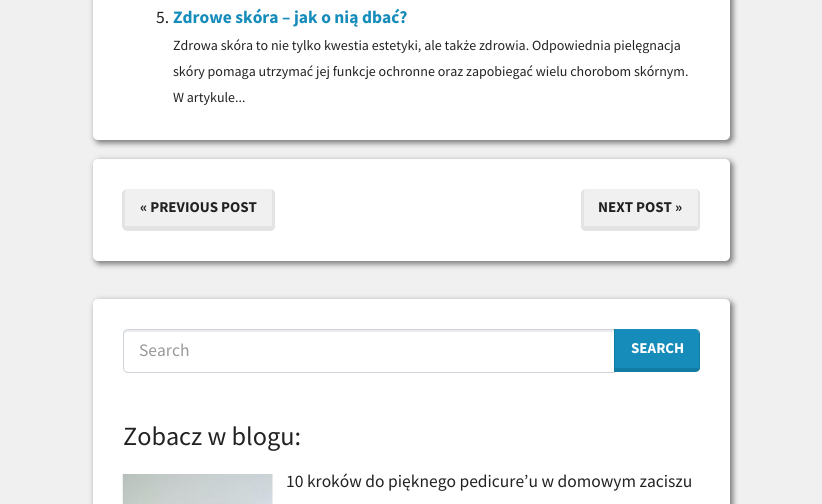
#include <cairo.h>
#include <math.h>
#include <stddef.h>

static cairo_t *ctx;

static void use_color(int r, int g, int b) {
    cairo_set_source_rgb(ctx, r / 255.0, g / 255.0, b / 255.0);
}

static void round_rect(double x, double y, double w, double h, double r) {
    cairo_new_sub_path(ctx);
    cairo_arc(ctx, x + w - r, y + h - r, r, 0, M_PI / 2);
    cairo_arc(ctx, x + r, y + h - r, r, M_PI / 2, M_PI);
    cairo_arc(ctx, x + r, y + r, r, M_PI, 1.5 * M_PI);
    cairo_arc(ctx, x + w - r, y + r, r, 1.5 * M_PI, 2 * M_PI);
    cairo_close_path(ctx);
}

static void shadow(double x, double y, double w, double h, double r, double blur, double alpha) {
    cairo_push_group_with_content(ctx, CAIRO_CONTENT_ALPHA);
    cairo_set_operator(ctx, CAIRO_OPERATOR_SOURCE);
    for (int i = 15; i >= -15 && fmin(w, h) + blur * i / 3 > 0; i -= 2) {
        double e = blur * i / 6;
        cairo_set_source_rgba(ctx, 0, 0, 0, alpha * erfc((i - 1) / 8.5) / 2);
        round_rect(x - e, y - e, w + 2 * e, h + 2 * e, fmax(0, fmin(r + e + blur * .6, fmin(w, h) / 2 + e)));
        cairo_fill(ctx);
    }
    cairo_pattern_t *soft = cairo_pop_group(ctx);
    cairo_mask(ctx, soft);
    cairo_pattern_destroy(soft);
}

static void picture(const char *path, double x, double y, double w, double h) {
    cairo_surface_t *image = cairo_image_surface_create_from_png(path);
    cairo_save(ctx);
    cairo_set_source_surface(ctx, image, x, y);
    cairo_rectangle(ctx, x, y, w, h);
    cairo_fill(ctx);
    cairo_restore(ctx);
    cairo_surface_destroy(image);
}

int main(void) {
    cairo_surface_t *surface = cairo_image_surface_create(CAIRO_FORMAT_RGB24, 822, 504);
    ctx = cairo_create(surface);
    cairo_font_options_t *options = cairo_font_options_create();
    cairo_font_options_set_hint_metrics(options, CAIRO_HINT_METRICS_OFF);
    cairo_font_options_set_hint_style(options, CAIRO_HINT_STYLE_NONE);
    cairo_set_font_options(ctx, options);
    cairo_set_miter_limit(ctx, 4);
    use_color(240, 240, 240);
    cairo_paint(ctx);
    use_color(0, 0, 0);
    shadow(95, -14, 638, 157, 5, 3, 0.5);
    use_color(255, 255, 255);
    round_rect(93, -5, 637, 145, 5);
    cairo_fill(ctx);
    cairo_select_font_face(ctx, "Source Sans Pro", CAIRO_FONT_SLANT_NORMAL, CAIRO_FONT_WEIGHT_NORMAL);
    cairo_set_font_size(ctx, 17.5);
    use_color(34, 34, 34);
    cairo_move_to(ctx, 156, 23);
    cairo_show_text(ctx, "5.");
    cairo_select_font_face(ctx, "Source Sans Pro", CAIRO_FONT_SLANT_NORMAL, CAIRO_FONT_WEIGHT_BOLD);
    use_color(21, 140, 186);
    cairo_move_to(ctx, 173, 23);
    cairo_show_text(ctx, "Zdrowe skóra – jak o nią dbać?");
    cairo_select_font_face(ctx, "Source Sans Pro", CAIRO_FONT_SLANT_NORMAL, CAIRO_FONT_WEIGHT_NORMAL);
    cairo_set_font_size(ctx, 14);
    use_color(34, 34, 34);
    cairo_move_to(ctx, 173, 50);
    cairo_show_text(ctx, "Zdrowa skóra to nie tylko kwestia estetyki, ale także zdrowia. Odpowiednia pielęgnacja");
    cairo_move_to(ctx, 173, 76);
    cairo_show_text(ctx, "skóry pomaga utrzymać jej funkcje ochronne oraz zapobiegać wielu chorobom skórnym.");
    cairo_move_to(ctx, 173, 102);
    cairo_show_text(ctx, "W artykule...");
    use_color(0, 0, 0);
    shadow(95, 161, 638, 103, 5, 3, 0.5);
    use_color(255, 255, 255);
    round_rect(93, 159, 637, 102, 5);
    cairo_fill(ctx);
    use_color(240, 240, 240);
    cairo_new_path(ctx);
    cairo_move_to(ctx, 128, 189);
    cairo_line_to(ctx, 270, 189);
    cairo_curve_to(ctx, 271, 189, 272, 191, 272, 194);
    cairo_line_to(ctx, 272, 226);
    cairo_line_to(ctx, 125, 226);
    cairo_line_to(ctx, 125, 194);
    cairo_curve_to(ctx, 125, 191, 126, 189, 128, 189);
    cairo_close_path(ctx);
    cairo_fill(ctx);
    use_color(227, 227, 227);
    cairo_set_fill_rule(ctx, CAIRO_FILL_RULE_EVEN_ODD);
    cairo_new_path(ctx);
    cairo_move_to(ctx, 128, 189);
    cairo_line_to(ctx, 270, 189);
    cairo_curve_to(ctx, 273, 189, 275, 191, 275, 194);
    cairo_line_to(ctx, 275, 226);
    cairo_curve_to(ctx, 275, 229, 273, 231, 270, 231);
    cairo_line_to(ctx, 128, 231);
    cairo_curve_to(ctx, 125, 231, 122, 229, 122, 226);
    cairo_line_to(ctx, 122, 194);
    cairo_curve_to(ctx, 122, 191, 125, 189, 128, 189);
    cairo_close_path(ctx);
    cairo_move_to(ctx, 128, 189);
    cairo_line_to(ctx, 270, 189);
    cairo_curve_to(ctx, 271, 189, 272, 191, 272, 194);
    cairo_line_to(ctx, 272, 226);
    cairo_line_to(ctx, 125, 226);
    cairo_line_to(ctx, 125, 194);
    cairo_curve_to(ctx, 125, 191, 126, 189, 128, 189);
    cairo_close_path(ctx);
    cairo_fill(ctx);
    cairo_select_font_face(ctx, "Source Sans Pro", CAIRO_FONT_SLANT_NORMAL, CAIRO_FONT_WEIGHT_BOLD);
    cairo_set_font_size(ctx, 15);
    use_color(34, 34, 34);
    cairo_move_to(ctx, 140, 212);
    cairo_show_text(ctx, "« PREVIOUS POST");
    use_color(240, 240, 240);
    cairo_set_fill_rule(ctx, CAIRO_FILL_RULE_WINDING);
    cairo_new_path(ctx);
    cairo_move_to(ctx, 586, 189);
    cairo_line_to(ctx, 695, 189);
    cairo_curve_to(ctx, 696, 189, 698, 191, 698, 194);
    cairo_line_to(ctx, 698, 226);
    cairo_line_to(ctx, 584, 226);
    cairo_line_to(ctx, 584, 194);
    cairo_curve_to(ctx, 584, 191, 585, 189, 586, 189);
    cairo_close_path(ctx);
    cairo_fill(ctx);
    use_color(227, 227, 227);
    cairo_set_fill_rule(ctx, CAIRO_FILL_RULE_EVEN_ODD);
    cairo_new_path(ctx);
    cairo_move_to(ctx, 586, 189);
    cairo_line_to(ctx, 695, 189);
    cairo_curve_to(ctx, 698, 189, 700, 191, 700, 194);
    cairo_line_to(ctx, 700, 226);
    cairo_curve_to(ctx, 700, 229, 698, 231, 695, 231);
    cairo_line_to(ctx, 586, 231);
    cairo_curve_to(ctx, 583, 231, 581, 229, 581, 226);
    cairo_line_to(ctx, 581, 194);
    cairo_curve_to(ctx, 581, 191, 583, 189, 586, 189);
    cairo_close_path(ctx);
    cairo_move_to(ctx, 586, 189);
    cairo_line_to(ctx, 695, 189);
    cairo_curve_to(ctx, 696, 189, 698, 191, 698, 194);
    cairo_line_to(ctx, 698, 226);
    cairo_line_to(ctx, 584, 226);
    cairo_line_to(ctx, 584, 194);
    cairo_curve_to(ctx, 584, 191, 585, 189, 586, 189);
    cairo_close_path(ctx);
    cairo_fill(ctx);
    use_color(34, 34, 34);
    cairo_move_to(ctx, 598, 212);
    cairo_show_text(ctx, "NEXT POST »");
    use_color(0, 0, 0);
    shadow(95, 301, 638, 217, 5, 3, 0.5);
    use_color(255, 255, 255);
    round_rect(93, 299, 637, 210, 5);
    cairo_fill(ctx);
    use_color(236, 236, 236);
    cairo_set_fill_rule(ctx, CAIRO_FILL_RULE_WINDING);
    cairo_new_path(ctx);
    cairo_move_to(ctx, 128, 332);
    cairo_line_to(ctx, 614, 332);
    cairo_line_to(ctx, 614, 330);
    cairo_line_to(ctx, 128, 330);
    cairo_curve_to(ctx, 124, 330, 124, 333, 124, 336);
    cairo_curve_to(ctx, 124, 334, 125, 332, 128, 332);
    cairo_close_path(ctx);
    cairo_fill(ctx);
    cairo_new_path(ctx);
    cairo_move_to(ctx, 128, 329.5);
    cairo_line_to(ctx, 614.5, 329.5);
    cairo_line_to(ctx, 614.5, 372.5);
    cairo_line_to(ctx, 128, 372.5);
    cairo_curve_to(ctx, 125.5, 372.5, 123.5, 370.5, 123.5, 368);
    cairo_line_to(ctx, 123.5, 334);
    cairo_curve_to(ctx, 123.5, 331.5, 125.5, 329.5, 128, 329.5);
    cairo_close_path(ctx);
    use_color(206, 212, 218);
    cairo_set_line_width(ctx, 1);
    cairo_stroke(ctx);
    cairo_select_font_face(ctx, "Source Sans Pro", CAIRO_FONT_SLANT_NORMAL, CAIRO_FONT_WEIGHT_NORMAL);
    cairo_set_font_size(ctx, 17.5);
    use_color(153, 153, 153);
    cairo_move_to(ctx, 139, 356);
    cairo_show_text(ctx, "Search");
    use_color(21, 140, 186);
    cairo_new_path(ctx);
    cairo_move_to(ctx, 615, 329);
    cairo_line_to(ctx, 695, 329);
    cairo_curve_to(ctx, 697, 329, 699, 331, 699, 334);
    cairo_line_to(ctx, 699, 368);
    cairo_line_to(ctx, 615, 368);
    cairo_close_path(ctx);
    cairo_fill(ctx);
    use_color(18, 123, 163);
    cairo_set_fill_rule(ctx, CAIRO_FILL_RULE_EVEN_ODD);
    cairo_new_path(ctx);
    cairo_move_to(ctx, 614, 329);
    cairo_line_to(ctx, 695, 329);
    cairo_curve_to(ctx, 698, 329, 700, 331, 700, 334);
    cairo_line_to(ctx, 700, 368);
    cairo_curve_to(ctx, 700, 370, 698, 372, 695, 372);
    cairo_line_to(ctx, 614, 372);
    cairo_close_path(ctx);
    cairo_move_to(ctx, 615, 329);
    cairo_line_to(ctx, 695, 329);
    cairo_curve_to(ctx, 697, 329, 699, 331, 699, 334);
    cairo_line_to(ctx, 699, 368);
    cairo_line_to(ctx, 615, 368);
    cairo_close_path(ctx);
    cairo_fill(ctx);
    cairo_select_font_face(ctx, "Source Sans Pro", CAIRO_FONT_SLANT_NORMAL, CAIRO_FONT_WEIGHT_BOLD);
    cairo_set_font_size(ctx, 15);
    use_color(255, 255, 255);
    cairo_move_to(ctx, 631, 353);
    cairo_show_text(ctx, "SEARCH");
    cairo_select_font_face(ctx, "Source Sans Pro", CAIRO_FONT_SLANT_NORMAL, CAIRO_FONT_WEIGHT_NORMAL);
    cairo_set_font_size(ctx, 26.25);
    use_color(34, 34, 34);
    cairo_move_to(ctx, 123, 445);
    cairo_show_text(ctx, "Zobacz w blogu:");
    picture("img1.png", 122, 474, 151, 30);
    cairo_set_font_size(ctx, 17.5);
    cairo_move_to(ctx, 286, 487);
    cairo_show_text(ctx, "10 kroków do pięknego pedicure’u w domowym zaciszu");
    cairo_surface_write_to_png(surface, "result.png");
    cairo_font_options_destroy(options);
    cairo_destroy(ctx);
    cairo_surface_destroy(surface);
    return 0;
}
